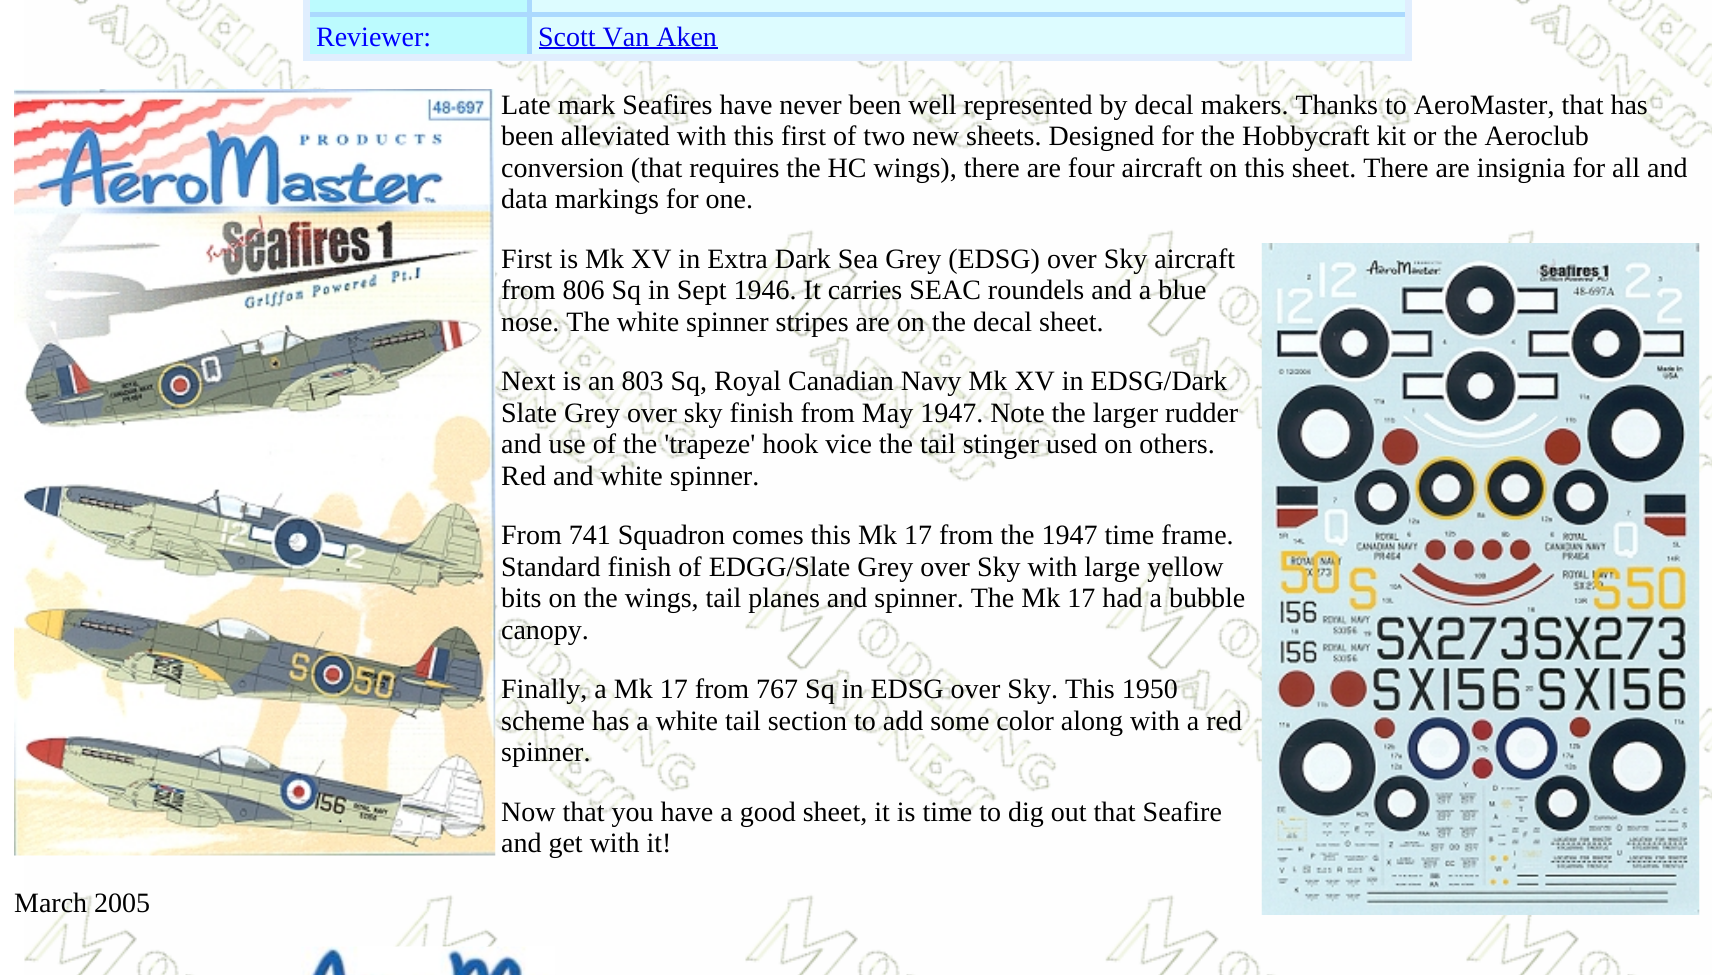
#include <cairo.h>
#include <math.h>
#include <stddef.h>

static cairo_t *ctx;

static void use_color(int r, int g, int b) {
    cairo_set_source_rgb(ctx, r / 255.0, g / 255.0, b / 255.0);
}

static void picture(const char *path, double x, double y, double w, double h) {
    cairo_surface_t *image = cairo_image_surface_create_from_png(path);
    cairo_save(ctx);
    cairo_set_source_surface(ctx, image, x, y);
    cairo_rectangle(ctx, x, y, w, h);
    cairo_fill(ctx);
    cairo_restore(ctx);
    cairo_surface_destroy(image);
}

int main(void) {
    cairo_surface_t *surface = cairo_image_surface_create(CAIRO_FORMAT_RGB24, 1712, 975);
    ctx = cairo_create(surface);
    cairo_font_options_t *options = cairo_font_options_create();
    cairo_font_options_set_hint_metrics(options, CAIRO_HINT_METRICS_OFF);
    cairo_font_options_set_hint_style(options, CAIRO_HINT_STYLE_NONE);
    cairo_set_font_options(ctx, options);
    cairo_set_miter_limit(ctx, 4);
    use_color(255, 255, 255);
    cairo_paint(ctx);
    picture("img1.png", 24, 0, 1688, 975);
    use_color(171, 217, 254);
    cairo_rectangle(ctx, 303, 12, 229, 5);
    cairo_fill(ctx);
    cairo_rectangle(ctx, 527, 12, 5, 49);
    cairo_fill(ctx);
    cairo_rectangle(ctx, 527, 12, 884, 5);
    cairo_fill(ctx);
    use_color(224, 238, 254);
    cairo_rectangle(ctx, 1405, 0, 7, 61);
    cairo_fill(ctx);
    cairo_rectangle(ctx, 303, 54, 1109, 7);
    cairo_fill(ctx);
    cairo_rectangle(ctx, 303, 0, 7, 61);
    cairo_fill(ctx);
    use_color(188, 251, 254);
    cairo_rectangle(ctx, 310, 0, 217, 12);
    cairo_fill(ctx);
    use_color(221, 252, 255);
    cairo_rectangle(ctx, 532, 0, 873, 12);
    cairo_fill(ctx);
    use_color(171, 217, 254);
    cairo_rectangle(ctx, 527, 0, 5, 18);
    cairo_fill(ctx);
    use_color(188, 251, 254);
    cairo_rectangle(ctx, 310, 17, 217, 37);
    cairo_fill(ctx);
    cairo_select_font_face(ctx, "Liberation Serif", CAIRO_FONT_SLANT_NORMAL, CAIRO_FONT_WEIGHT_NORMAL);
    cairo_set_font_size(ctx, 28);
    use_color(0, 0, 255);
    cairo_move_to(ctx, 316, 46);
    cairo_show_text(ctx, "Reviewer:");
    use_color(221, 252, 255);
    cairo_rectangle(ctx, 532, 17, 873, 37);
    cairo_fill(ctx);
    use_color(0, 0, 238);
    cairo_move_to(ctx, 538, 46);
    cairo_show_text(ctx, "Scott Van Aken");
    cairo_rectangle(ctx, 539, 47, 179, 2);
    cairo_fill(ctx);
    picture("img2.png", 14, 89, 482, 767);
    use_color(0, 0, 0);
    cairo_move_to(ctx, 501, 114);
    cairo_show_text(ctx, "Late mark Seafires have never been well represented by decal makers. Thanks to AeroMaster, that has");
    cairo_move_to(ctx, 501, 145);
    cairo_show_text(ctx, "been alleviated with this first of two new sheets. Designed for the Hobbycraft kit or the Aeroclub");
    cairo_move_to(ctx, 501, 177);
    cairo_show_text(ctx, "conversion (that requires the HC wings), there are four aircraft on this sheet. There are insignia for all and");
    cairo_move_to(ctx, 501, 208);
    cairo_show_text(ctx, "data markings for one.");
    cairo_move_to(ctx, 501, 268);
    cairo_show_text(ctx, "First is Mk XV in Extra Dark Sea Grey (EDSG) over Sky aircraft");
    picture("img3.png", 1261, 243, 439, 672);
    cairo_move_to(ctx, 501, 299);
    cairo_show_text(ctx, "from 806 Sq in Sept 1946. It carries SEAC roundels and a blue");
    cairo_move_to(ctx, 501, 331);
    cairo_show_text(ctx, "nose. The white spinner stripes are on the decal sheet.");
    cairo_move_to(ctx, 501, 390);
    cairo_show_text(ctx, "Next is an 803 Sq, Royal Canadian Navy Mk XV in EDSG/Dark");
    cairo_move_to(ctx, 501, 422);
    cairo_show_text(ctx, "Slate Grey over sky finish from May 1947. Note the larger rudder");
    cairo_move_to(ctx, 501, 453);
    cairo_show_text(ctx, "and use of the 'trapeze' hook vice the tail stinger used on others.");
    cairo_move_to(ctx, 501, 485);
    cairo_show_text(ctx, "Red and white spinner.");
    cairo_move_to(ctx, 501, 544);
    cairo_show_text(ctx, "From 741 Squadron comes this Mk 17 from the 1947 time frame.");
    cairo_move_to(ctx, 501, 576);
    cairo_show_text(ctx, "Standard finish of EDGG/Slate Grey over Sky with large yellow");
    cairo_move_to(ctx, 501, 607);
    cairo_show_text(ctx, "bits on the wings, tail planes and spinner. The Mk 17 had a bubble");
    cairo_move_to(ctx, 501, 639);
    cairo_show_text(ctx, "canopy.");
    cairo_move_to(ctx, 501, 698);
    cairo_show_text(ctx, "Finally, a Mk 17 from 767 Sq in EDSG over Sky. This 1950");
    cairo_move_to(ctx, 501, 730);
    cairo_show_text(ctx, "scheme has a white tail section to add some color along with a red");
    cairo_move_to(ctx, 501, 761);
    cairo_show_text(ctx, "spinner.");
    cairo_move_to(ctx, 501, 821);
    cairo_show_text(ctx, "Now that you have a good sheet, it is time to dig out that Seafire");
    cairo_move_to(ctx, 501, 852);
    cairo_show_text(ctx, "and get with it!");
    cairo_move_to(ctx, 14, 912);
    cairo_show_text(ctx, "March 2005");
    picture("img4.png", 301, 946, 254, 29);
    cairo_surface_write_to_png(surface, "result.png");
    cairo_font_options_destroy(options);
    cairo_destroy(ctx);
    cairo_surface_destroy(surface);
    return 0;
}
